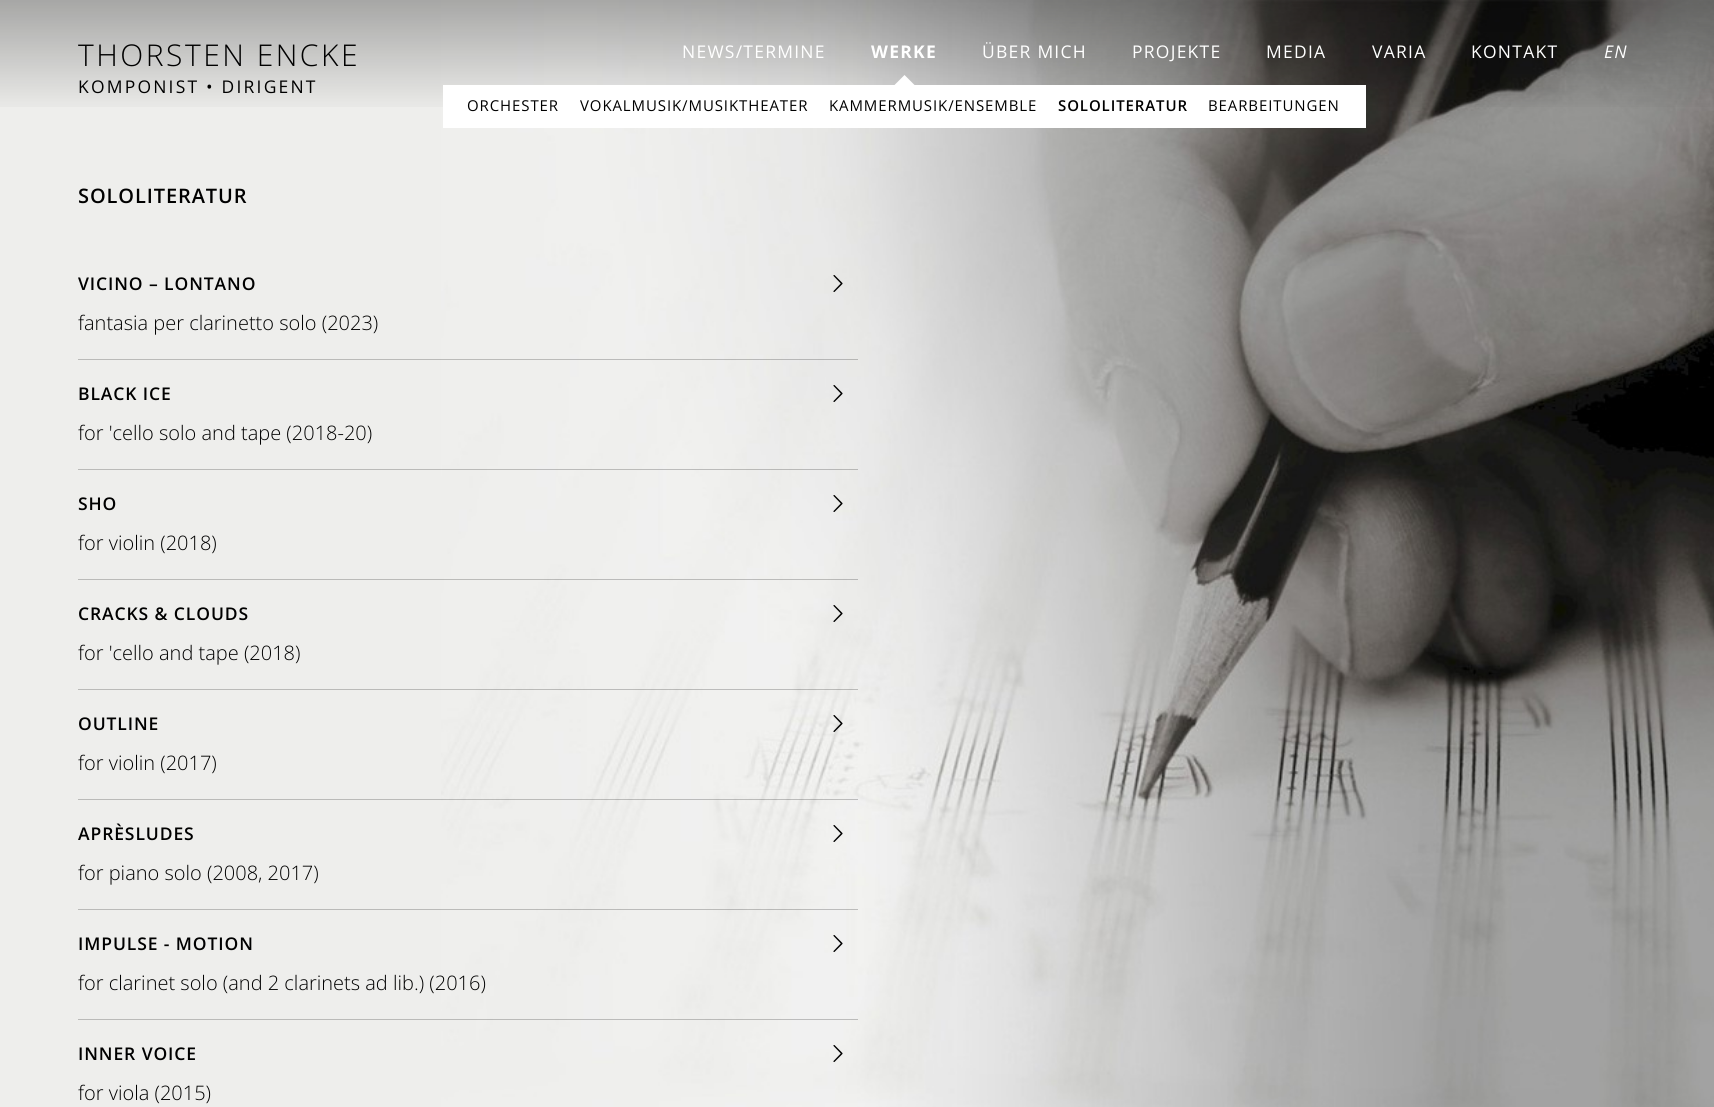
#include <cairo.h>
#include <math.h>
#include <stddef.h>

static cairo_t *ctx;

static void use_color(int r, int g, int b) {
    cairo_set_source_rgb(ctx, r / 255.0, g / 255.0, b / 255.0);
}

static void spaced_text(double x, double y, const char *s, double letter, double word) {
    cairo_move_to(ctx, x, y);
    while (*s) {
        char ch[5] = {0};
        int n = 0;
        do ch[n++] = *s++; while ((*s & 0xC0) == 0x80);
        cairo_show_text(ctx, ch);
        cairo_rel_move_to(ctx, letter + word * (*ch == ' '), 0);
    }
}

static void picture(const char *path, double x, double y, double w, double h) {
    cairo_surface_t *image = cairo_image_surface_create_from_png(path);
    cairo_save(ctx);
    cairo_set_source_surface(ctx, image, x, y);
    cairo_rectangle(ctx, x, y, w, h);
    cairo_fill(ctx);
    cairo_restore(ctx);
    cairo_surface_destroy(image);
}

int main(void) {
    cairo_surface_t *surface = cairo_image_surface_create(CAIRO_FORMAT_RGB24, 1714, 1107);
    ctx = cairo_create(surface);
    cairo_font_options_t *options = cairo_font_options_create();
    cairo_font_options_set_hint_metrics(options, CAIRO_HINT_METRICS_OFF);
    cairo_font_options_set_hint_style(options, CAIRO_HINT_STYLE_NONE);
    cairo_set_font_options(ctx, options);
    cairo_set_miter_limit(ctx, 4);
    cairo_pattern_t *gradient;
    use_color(238, 238, 236);
    cairo_paint(ctx);
    picture("img9.png", 441, 0, 1273, 1107);
    gradient = cairo_pattern_create_linear(858, 0, 858, 115);
    cairo_pattern_add_color_stop_rgba(gradient, 0, 0, 0, 0, 0.3);
    cairo_pattern_add_color_stop_rgba(gradient, 1, 0, 0, 0, 0);
    cairo_set_source(ctx, gradient);
    cairo_pattern_destroy(gradient);
    cairo_rectangle(ctx, 0, 0, 1714, 107);
    cairo_fill(ctx);
    cairo_select_font_face(ctx, "Open Sans Light", CAIRO_FONT_SLANT_NORMAL, CAIRO_FONT_WEIGHT_NORMAL);
    cairo_set_font_size(ctx, 30);
    use_color(0, 0, 0);
    spaced_text(78, 66, "THORSTEN ENCKE", 2.5, 0);
    cairo_select_font_face(ctx, "Open Sans", CAIRO_FONT_SLANT_NORMAL, CAIRO_FONT_WEIGHT_NORMAL);
    cairo_set_font_size(ctx, 17.5);
    spaced_text(78, 93, "KOMPONIST • DIRIGENT", 2.2, 0);
    use_color(255, 255, 255);
    spaced_text(982, 58, "ÜBER MICH", 1.25, 0);
    cairo_select_font_face(ctx, "Open Sans", CAIRO_FONT_SLANT_NORMAL, CAIRO_FONT_WEIGHT_BOLD);
    spaced_text(871, 58, "WERKE", 1.25, 0);
    cairo_new_path(ctx);
    cairo_move_to(ctx, 914.5, 85);
    cairo_line_to(ctx, 894.5, 85);
    cairo_line_to(ctx, 904.5, 75);
    cairo_close_path(ctx);
    cairo_fill(ctx);
    cairo_rectangle(ctx, 443, 85, 923, 43);
    cairo_fill(ctx);
    cairo_select_font_face(ctx, "Open Sans", CAIRO_FONT_SLANT_NORMAL, CAIRO_FONT_WEIGHT_NORMAL);
    cairo_set_font_size(ctx, 15);
    use_color(0, 0, 0);
    spaced_text(467, 111, "ORCHESTER", 0.9, 0);
    spaced_text(580, 111, "VOKALMUSIK/MUSIKTHEATER", 0.9, 0);
    spaced_text(829, 111, "KAMMERMUSIK/ENSEMBLE", 0.9, 0);
    cairo_select_font_face(ctx, "Open Sans SemiBold", CAIRO_FONT_SLANT_NORMAL, CAIRO_FONT_WEIGHT_NORMAL);
    spaced_text(1058, 111, "SOLOLITERATUR", 0.9, 0);
    cairo_select_font_face(ctx, "Open Sans", CAIRO_FONT_SLANT_NORMAL, CAIRO_FONT_WEIGHT_NORMAL);
    spaced_text(1208, 111, "BEARBEITUNGEN", 0.9, 0);
    cairo_set_font_size(ctx, 17.5);
    use_color(255, 255, 255);
    spaced_text(682, 58, "NEWS/TERMINE", 1.25, 0);
    spaced_text(1132, 58, "PROJEKTE", 1.25, 0);
    spaced_text(1266, 58, "MEDIA", 1.25, 0);
    spaced_text(1372, 58, "VARIA", 1.25, 0);
    spaced_text(1471, 58, "KONTAKT", 1.25, 0);
    cairo_select_font_face(ctx, "Open Sans", CAIRO_FONT_SLANT_ITALIC, CAIRO_FONT_WEIGHT_NORMAL);
    spaced_text(1604, 58, "EN", 1.25, 0);
    cairo_select_font_face(ctx, "Open Sans SemiBold", CAIRO_FONT_SLANT_NORMAL, CAIRO_FONT_WEIGHT_NORMAL);
    cairo_set_font_size(ctx, 20);
    use_color(0, 0, 0);
    spaced_text(78, 203, "SOLOLITERATUR", 0.9, 0);
    cairo_set_source_rgba(ctx, 0, 0, 0, 0.22);
    cairo_rectangle(ctx, 78, 359, 780, 1);
    cairo_fill(ctx);
    cairo_set_font_size(ctx, 17.5);
    use_color(0, 0, 0);
    spaced_text(78, 290, "VICINO – LONTANO", 0.9, 0);
    picture("img1.png", 833, 275, 10, 17);
    cairo_select_font_face(ctx, "Open Sans Light", CAIRO_FONT_SLANT_NORMAL, CAIRO_FONT_WEIGHT_NORMAL);
    cairo_set_font_size(ctx, 20);
    cairo_move_to(ctx, 78, 330);
    cairo_show_text(ctx, "fantasia per clarinetto solo (2023)");
    cairo_set_source_rgba(ctx, 0, 0, 0, 0.22);
    cairo_rectangle(ctx, 78, 469, 780, 1);
    cairo_fill(ctx);
    cairo_select_font_face(ctx, "Open Sans SemiBold", CAIRO_FONT_SLANT_NORMAL, CAIRO_FONT_WEIGHT_NORMAL);
    cairo_set_font_size(ctx, 17.5);
    use_color(0, 0, 0);
    spaced_text(78, 400, "BLACK ICE", 0.9, 0);
    picture("img2.png", 833, 385, 10, 17);
    cairo_select_font_face(ctx, "Open Sans Light", CAIRO_FONT_SLANT_NORMAL, CAIRO_FONT_WEIGHT_NORMAL);
    cairo_set_font_size(ctx, 20);
    cairo_move_to(ctx, 78, 440);
    cairo_show_text(ctx, "for 'cello solo and tape (2018-20)");
    cairo_set_source_rgba(ctx, 0, 0, 0, 0.22);
    cairo_rectangle(ctx, 78, 579, 780, 1);
    cairo_fill(ctx);
    cairo_select_font_face(ctx, "Open Sans SemiBold", CAIRO_FONT_SLANT_NORMAL, CAIRO_FONT_WEIGHT_NORMAL);
    cairo_set_font_size(ctx, 17.5);
    use_color(0, 0, 0);
    spaced_text(78, 510, "SHO", 0.9, 0);
    picture("img3.png", 833, 495, 10, 17);
    cairo_select_font_face(ctx, "Open Sans Light", CAIRO_FONT_SLANT_NORMAL, CAIRO_FONT_WEIGHT_NORMAL);
    cairo_set_font_size(ctx, 20);
    cairo_move_to(ctx, 78, 550);
    cairo_show_text(ctx, "for violin (2018)");
    cairo_set_source_rgba(ctx, 0, 0, 0, 0.22);
    cairo_rectangle(ctx, 78, 689, 780, 1);
    cairo_fill(ctx);
    cairo_select_font_face(ctx, "Open Sans SemiBold", CAIRO_FONT_SLANT_NORMAL, CAIRO_FONT_WEIGHT_NORMAL);
    cairo_set_font_size(ctx, 17.5);
    use_color(0, 0, 0);
    spaced_text(78, 620, "CRACKS & CLOUDS", 0.9, 0);
    picture("img4.png", 833, 605, 10, 17);
    cairo_select_font_face(ctx, "Open Sans Light", CAIRO_FONT_SLANT_NORMAL, CAIRO_FONT_WEIGHT_NORMAL);
    cairo_set_font_size(ctx, 20);
    cairo_move_to(ctx, 78, 660);
    cairo_show_text(ctx, "for 'cello and tape (2018)");
    cairo_set_source_rgba(ctx, 0, 0, 0, 0.22);
    cairo_rectangle(ctx, 78, 799, 780, 1);
    cairo_fill(ctx);
    cairo_select_font_face(ctx, "Open Sans SemiBold", CAIRO_FONT_SLANT_NORMAL, CAIRO_FONT_WEIGHT_NORMAL);
    cairo_set_font_size(ctx, 17.5);
    use_color(0, 0, 0);
    spaced_text(78, 730, "OUTLINE", 0.9, 0);
    picture("img5.png", 833, 715, 10, 17);
    cairo_select_font_face(ctx, "Open Sans Light", CAIRO_FONT_SLANT_NORMAL, CAIRO_FONT_WEIGHT_NORMAL);
    cairo_set_font_size(ctx, 20);
    cairo_move_to(ctx, 78, 770);
    cairo_show_text(ctx, "for violin (2017)");
    cairo_set_source_rgba(ctx, 0, 0, 0, 0.22);
    cairo_rectangle(ctx, 78, 909, 780, 1);
    cairo_fill(ctx);
    cairo_select_font_face(ctx, "Open Sans SemiBold", CAIRO_FONT_SLANT_NORMAL, CAIRO_FONT_WEIGHT_NORMAL);
    cairo_set_font_size(ctx, 17.5);
    use_color(0, 0, 0);
    spaced_text(78, 840, "APRÈSLUDES", 0.9, 0);
    picture("img6.png", 833, 825, 10, 17);
    cairo_select_font_face(ctx, "Open Sans Light", CAIRO_FONT_SLANT_NORMAL, CAIRO_FONT_WEIGHT_NORMAL);
    cairo_set_font_size(ctx, 20);
    cairo_move_to(ctx, 78, 880);
    cairo_show_text(ctx, "for piano solo (2008, 2017)");
    cairo_set_source_rgba(ctx, 0, 0, 0, 0.22);
    cairo_rectangle(ctx, 78, 1019, 780, 1);
    cairo_fill(ctx);
    cairo_select_font_face(ctx, "Open Sans SemiBold", CAIRO_FONT_SLANT_NORMAL, CAIRO_FONT_WEIGHT_NORMAL);
    cairo_set_font_size(ctx, 17.5);
    use_color(0, 0, 0);
    spaced_text(78, 950, "IMPULSE - MOTION", 0.9, 0);
    picture("img7.png", 833, 935, 10, 17);
    cairo_select_font_face(ctx, "Open Sans Light", CAIRO_FONT_SLANT_NORMAL, CAIRO_FONT_WEIGHT_NORMAL);
    cairo_set_font_size(ctx, 20);
    cairo_move_to(ctx, 78, 990);
    cairo_show_text(ctx, "for clarinet solo (and 2 clarinets ad lib.) (2016)");
    cairo_select_font_face(ctx, "Open Sans SemiBold", CAIRO_FONT_SLANT_NORMAL, CAIRO_FONT_WEIGHT_NORMAL);
    cairo_set_font_size(ctx, 17.5);
    spaced_text(78, 1060, "INNER VOICE", 0.9, 0);
    picture("img8.png", 833, 1045, 10, 17);
    cairo_select_font_face(ctx, "Open Sans Light", CAIRO_FONT_SLANT_NORMAL, CAIRO_FONT_WEIGHT_NORMAL);
    cairo_set_font_size(ctx, 20);
    cairo_move_to(ctx, 78, 1100);
    cairo_show_text(ctx, "for viola (2015)");
    cairo_surface_write_to_png(surface, "result.png");
    cairo_font_options_destroy(options);
    cairo_destroy(ctx);
    cairo_surface_destroy(surface);
    return 0;
}
